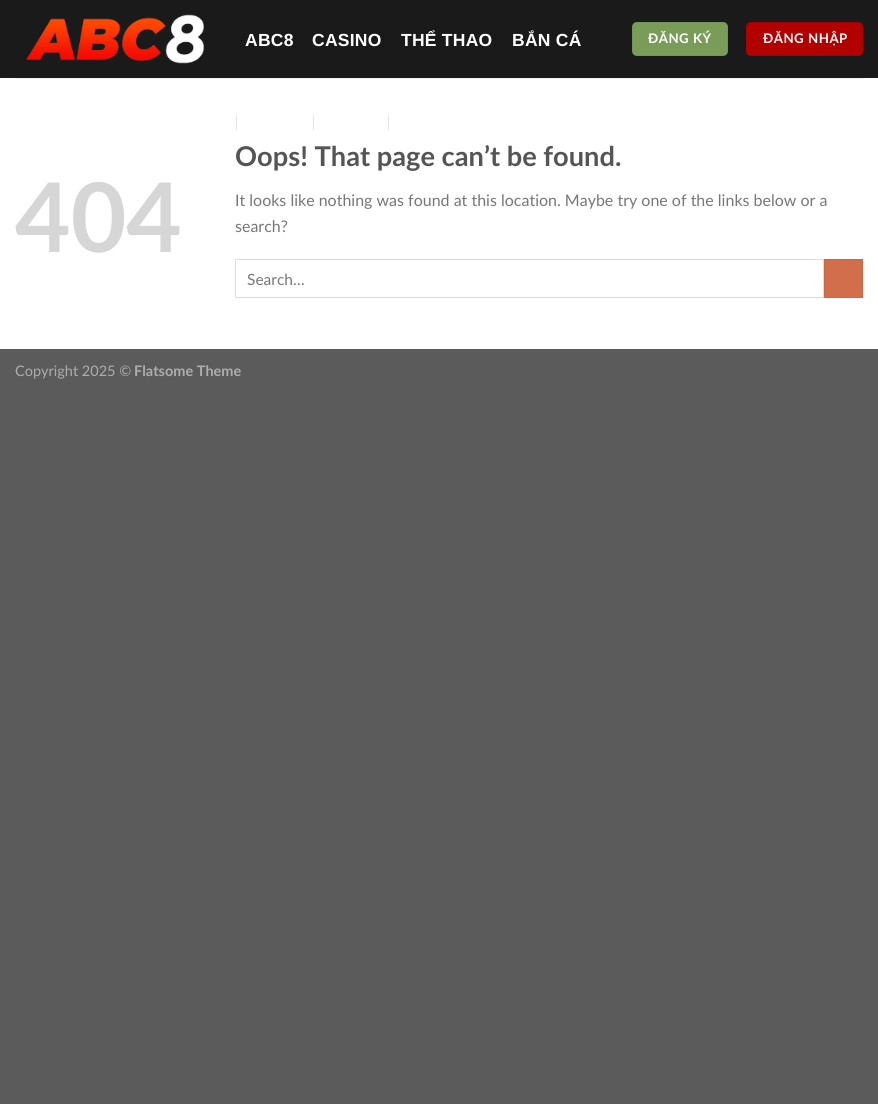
#include <cairo.h>
#include <math.h>
#include <stddef.h>

static cairo_t *ctx;

static void use_color(int r, int g, int b) {
    cairo_set_source_rgb(ctx, r / 255.0, g / 255.0, b / 255.0);
}

static void spaced_text(double x, double y, const char *s, double letter, double word) {
    cairo_move_to(ctx, x, y);
    while (*s) {
        char ch[5] = {0};
        int n = 0;
        do ch[n++] = *s++; while ((*s & 0xC0) == 0x80);
        cairo_show_text(ctx, ch);
        cairo_rel_move_to(ctx, letter + word * (*ch == ' '), 0);
    }
}

static void round_rect(double x, double y, double w, double h, double r) {
    cairo_new_sub_path(ctx);
    cairo_arc(ctx, x + w - r, y + h - r, r, 0, M_PI / 2);
    cairo_arc(ctx, x + r, y + h - r, r, M_PI / 2, M_PI);
    cairo_arc(ctx, x + r, y + r, r, M_PI, 1.5 * M_PI);
    cairo_arc(ctx, x + w - r, y + r, r, 1.5 * M_PI, 2 * M_PI);
    cairo_close_path(ctx);
}

static void picture(const char *path, double x, double y, double w, double h) {
    cairo_surface_t *image = cairo_image_surface_create_from_png(path);
    cairo_save(ctx);
    cairo_set_source_surface(ctx, image, x, y);
    cairo_rectangle(ctx, x, y, w, h);
    cairo_fill(ctx);
    cairo_restore(ctx);
    cairo_surface_destroy(image);
}

int main(void) {
    cairo_surface_t *surface = cairo_image_surface_create(CAIRO_FORMAT_RGB24, 878, 1104);
    ctx = cairo_create(surface);
    cairo_font_options_t *options = cairo_font_options_create();
    cairo_font_options_set_hint_metrics(options, CAIRO_HINT_METRICS_OFF);
    cairo_font_options_set_hint_style(options, CAIRO_HINT_STYLE_NONE);
    cairo_set_font_options(ctx, options);
    cairo_set_miter_limit(ctx, 4);
    use_color(91, 91, 91);
    cairo_paint(ctx);
    use_color(255, 255, 255);
    cairo_rectangle(ctx, 0, 78, 878, 271);
    cairo_fill(ctx);
    use_color(26, 26, 26);
    cairo_rectangle(ctx, 0, 0, 878, 78);
    cairo_fill(ctx);
    picture("img1.png", 26, 14, 178, 50);
    cairo_select_font_face(ctx, "Liberation Sans", CAIRO_FONT_SLANT_NORMAL, CAIRO_FONT_WEIGHT_BOLD);
    cairo_set_font_size(ctx, 17.5);
    use_color(255, 255, 255);
    spaced_text(245, 46, "ABC8", 0.25, 0);
    use_color(23, 23, 23);
    cairo_rectangle(ctx, 295, 34, 1, 15);
    cairo_fill(ctx);
    use_color(255, 255, 255);
    spaced_text(312, 46, "CASINO", 0.25, 0);
    use_color(23, 23, 23);
    cairo_rectangle(ctx, 383, 34, 1, 15);
    cairo_fill(ctx);
    use_color(255, 255, 255);
    spaced_text(401, 46, "THỂ THAO", 0.25, 0);
    use_color(23, 23, 23);
    cairo_rectangle(ctx, 494, 34, 1, 15);
    cairo_fill(ctx);
    use_color(255, 255, 255);
    spaced_text(512, 46, "BẮN CÁ", 0.25, 0);
    use_color(230, 230, 230);
    cairo_rectangle(ctx, 236, 115, 1, 15);
    cairo_fill(ctx);
    cairo_rectangle(ctx, 313, 115, 1, 15);
    cairo_fill(ctx);
    cairo_rectangle(ctx, 388, 115, 1, 15);
    cairo_fill(ctx);
    use_color(122, 156, 89);
    round_rect(632, 22, 96, 34, 5);
    cairo_fill(ctx);
    cairo_rectangle(ctx, 632.5, 22.5, 95, 33);
    cairo_set_source_rgba(ctx, 0, 0, 0, 0.05);
    cairo_set_line_width(ctx, 1);
    cairo_stroke(ctx);
    cairo_select_font_face(ctx, "Lato", CAIRO_FONT_SLANT_NORMAL, CAIRO_FONT_WEIGHT_BOLD);
    cairo_set_font_size(ctx, 13.25);
    use_color(255, 255, 255);
    spaced_text(648, 43, "ĐĂNG KÝ", 0.5, 0);
    use_color(178, 0, 0);
    round_rect(746, 22, 117, 34, 5);
    cairo_fill(ctx);
    cairo_rectangle(ctx, 746.5, 22.5, 116, 33);
    cairo_set_source_rgba(ctx, 0, 0, 0, 0.05);
    cairo_stroke(ctx);
    use_color(255, 255, 255);
    spaced_text(763, 43, "ĐĂNG NHẬP", 0.5, 0);
    use_color(241, 241, 241);
    cairo_rectangle(ctx, 15, 78, 848, 1);
    cairo_fill(ctx);
    cairo_set_font_size(ctx, 96);
    use_color(214, 214, 214);
    cairo_move_to(ctx, 15, 252);
    cairo_show_text(ctx, "404");
    cairo_set_font_size(ctx, 27.25);
    use_color(85, 85, 85);
    cairo_move_to(ctx, 235, 166);
    cairo_show_text(ctx, "Oops! That page can’t be found.");
    cairo_select_font_face(ctx, "Lato", CAIRO_FONT_SLANT_NORMAL, CAIRO_FONT_WEIGHT_NORMAL);
    cairo_set_font_size(ctx, 16);
    use_color(119, 119, 119);
    cairo_move_to(ctx, 235, 206);
    cairo_show_text(ctx, "It looks like nothing was found at this location. Maybe try one of the links below or a");
    cairo_move_to(ctx, 235, 232);
    cairo_show_text(ctx, "search?");
    cairo_rectangle(ctx, 235.5, 259.5, 588, 38);
    use_color(221, 221, 221);
    cairo_stroke(ctx);
    cairo_set_font_size(ctx, 15.5);
    use_color(119, 119, 119);
    cairo_move_to(ctx, 247, 285);
    cairo_show_text(ctx, "Search…");
    use_color(210, 110, 75);
    cairo_rectangle(ctx, 824.5, 259.5, 38, 38);
    cairo_fill_preserve(ctx);
    use_color(200, 105, 71);
    cairo_stroke(ctx);
    cairo_set_font_size(ctx, 14.5);
    use_color(173, 173, 173);
    cairo_move_to(ctx, 15, 376);
    cairo_show_text(ctx, "Copyright 2025 ©");
    cairo_select_font_face(ctx, "Lato", CAIRO_FONT_SLANT_NORMAL, CAIRO_FONT_WEIGHT_BOLD);
    cairo_move_to(ctx, 134, 376);
    cairo_show_text(ctx, "Flatsome Theme");
    cairo_surface_write_to_png(surface, "result.png");
    cairo_font_options_destroy(options);
    cairo_destroy(ctx);
    cairo_surface_destroy(surface);
    return 0;
}
